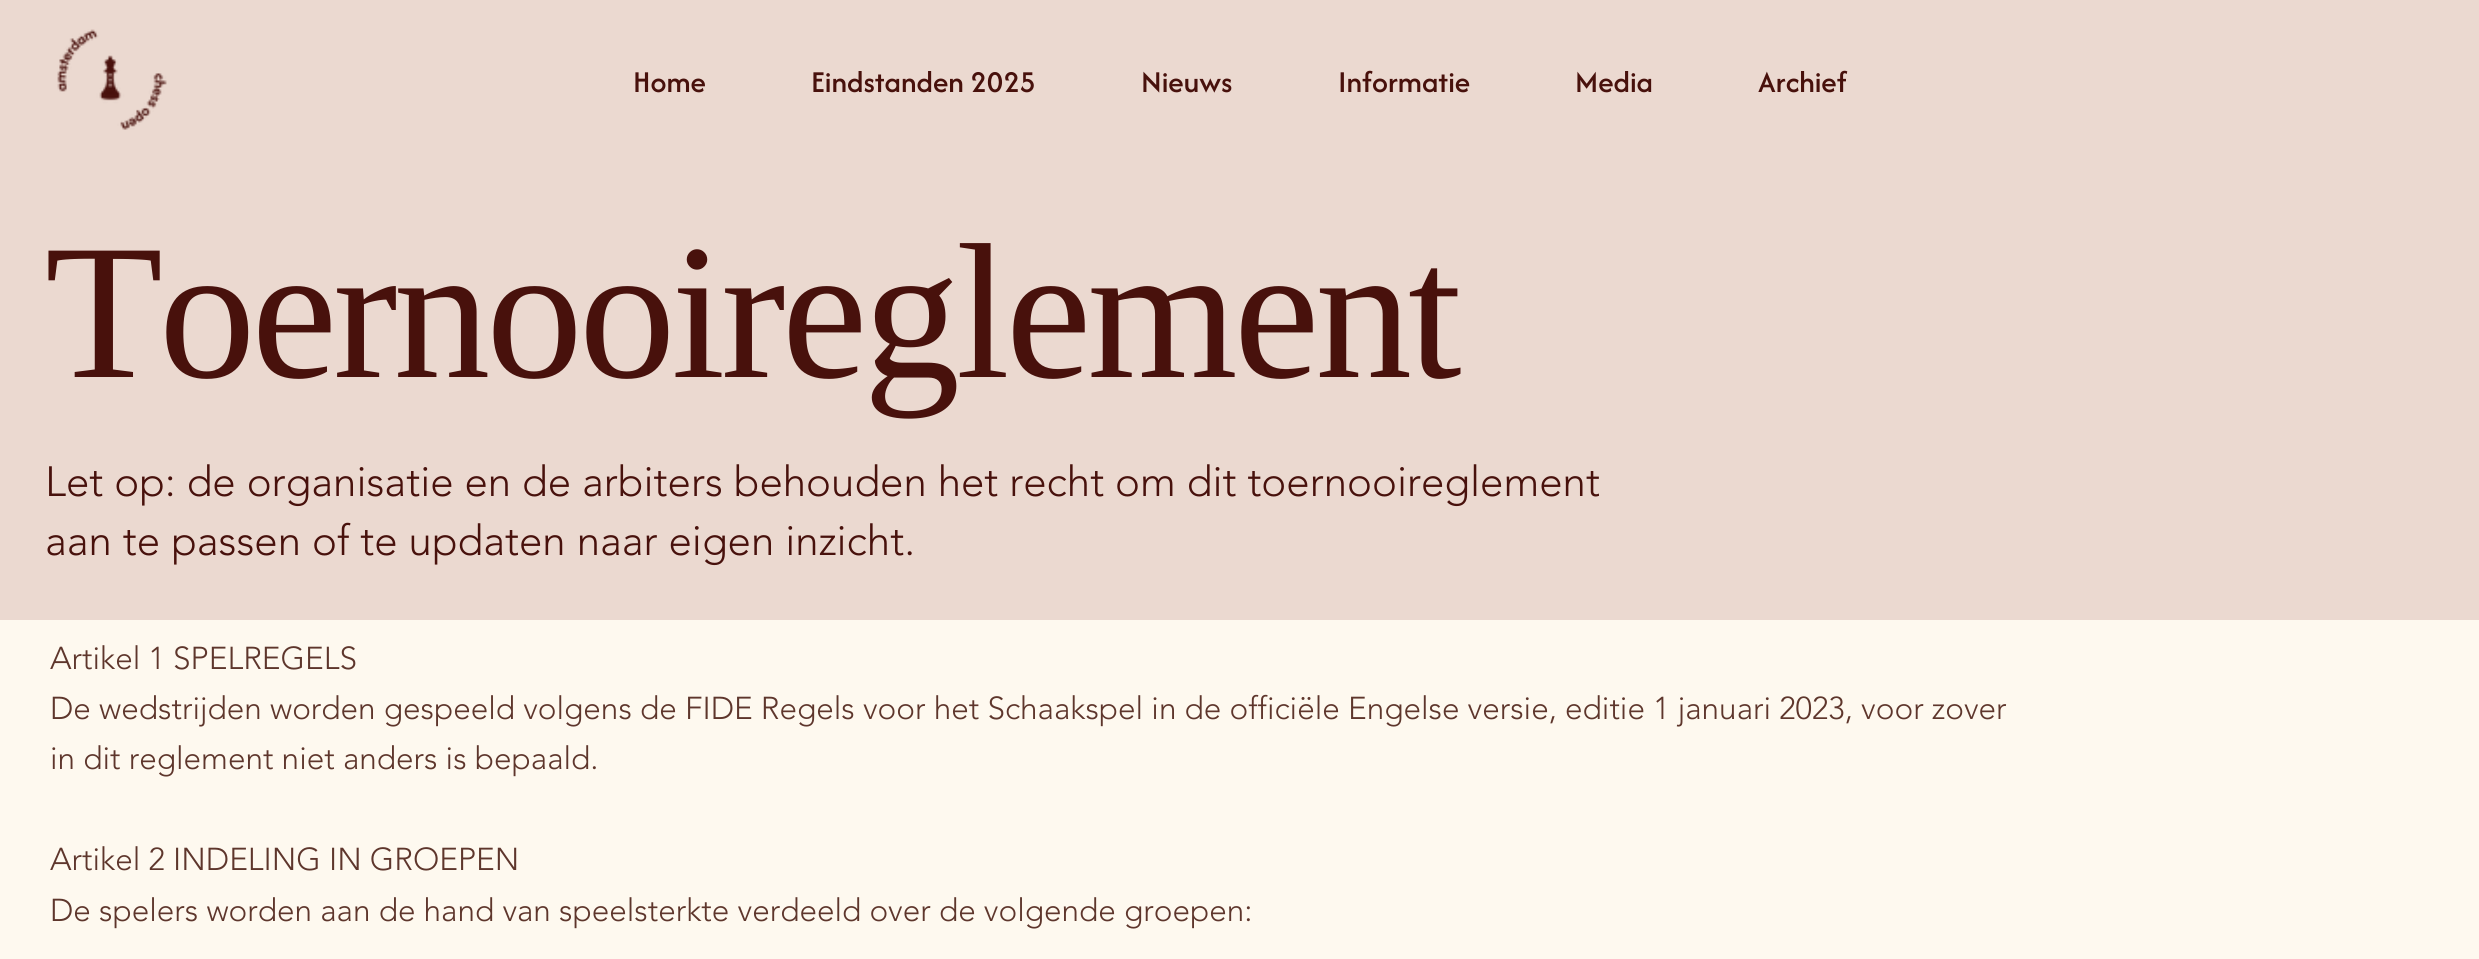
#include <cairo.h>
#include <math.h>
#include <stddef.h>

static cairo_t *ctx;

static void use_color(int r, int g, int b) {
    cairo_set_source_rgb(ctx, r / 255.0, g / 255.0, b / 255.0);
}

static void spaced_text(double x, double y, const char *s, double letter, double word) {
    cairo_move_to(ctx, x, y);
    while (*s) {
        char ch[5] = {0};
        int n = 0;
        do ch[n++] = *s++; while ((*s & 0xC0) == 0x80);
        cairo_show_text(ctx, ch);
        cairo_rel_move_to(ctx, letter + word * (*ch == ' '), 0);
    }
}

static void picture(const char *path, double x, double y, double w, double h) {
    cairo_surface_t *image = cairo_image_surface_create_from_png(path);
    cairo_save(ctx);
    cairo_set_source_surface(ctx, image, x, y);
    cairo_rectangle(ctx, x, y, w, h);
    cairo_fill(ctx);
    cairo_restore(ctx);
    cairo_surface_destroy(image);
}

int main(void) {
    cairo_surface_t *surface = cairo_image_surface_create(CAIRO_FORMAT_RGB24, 2479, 959);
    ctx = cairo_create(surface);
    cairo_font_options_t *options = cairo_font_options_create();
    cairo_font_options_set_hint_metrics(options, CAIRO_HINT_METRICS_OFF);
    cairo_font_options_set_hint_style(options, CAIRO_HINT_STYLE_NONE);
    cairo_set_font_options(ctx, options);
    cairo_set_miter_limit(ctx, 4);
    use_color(254, 249, 239);
    cairo_paint(ctx);
    use_color(235, 217, 208);
    cairo_rectangle(ctx, 0, 0, 2479, 620);
    cairo_fill(ctx);
    picture("img1.png", 57, 29, 110, 101);
    cairo_select_font_face(ctx, "Afacad Medium", CAIRO_FONT_SLANT_NORMAL, CAIRO_FONT_WEIGHT_NORMAL);
    cairo_set_font_size(ctx, 31.5);
    use_color(72, 17, 12);
    cairo_move_to(ctx, 633, 92);
    cairo_show_text(ctx, "Home");
    cairo_move_to(ctx, 811, 92);
    cairo_show_text(ctx, "Eindstanden 2025");
    cairo_move_to(ctx, 1141, 92);
    cairo_show_text(ctx, "Nieuws");
    cairo_move_to(ctx, 1338, 92);
    cairo_show_text(ctx, "Informatie");
    cairo_move_to(ctx, 1575, 92);
    cairo_show_text(ctx, "Media");
    cairo_move_to(ctx, 1758, 92);
    cairo_show_text(ctx, "Archief");
    cairo_select_font_face(ctx, "Liberation Serif", CAIRO_FONT_SLANT_NORMAL, CAIRO_FONT_WEIGHT_NORMAL);
    cairo_set_font_size(ctx, 193);
    spaced_text(45, 377, "Toernooireglement", -3.9, 0);
    cairo_select_font_face(ctx, "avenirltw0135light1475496 Light", CAIRO_FONT_SLANT_NORMAL, CAIRO_FONT_WEIGHT_NORMAL);
    cairo_set_font_size(ctx, 42);
    cairo_move_to(ctx, 45, 496);
    cairo_show_text(ctx, "Let op: de organisatie en de arbiters behouden het recht om dit toernooireglement");
    cairo_move_to(ctx, 45, 555);
    cairo_show_text(ctx, "aan te passen of te updaten naar eigen inzicht.");
    cairo_set_font_size(ctx, 31.5);
    use_color(94, 54, 44);
    cairo_move_to(ctx, 50, 669);
    cairo_show_text(ctx, "Artikel 1 SPELREGELS");
    cairo_move_to(ctx, 50, 719);
    cairo_show_text(ctx, "De wedstrijden worden gespeeld volgens de FIDE Regels voor het Schaakspel in de officiële Engelse versie, editie 1 januari 2023, voor zover");
    cairo_move_to(ctx, 50, 769);
    cairo_show_text(ctx, "in dit reglement niet anders is bepaald.");
    cairo_move_to(ctx, 50, 870);
    cairo_show_text(ctx, "Artikel 2 INDELING IN GROEPEN");
    cairo_move_to(ctx, 50, 921);
    cairo_show_text(ctx, "De spelers worden aan de hand van speelsterkte verdeeld over de volgende groepen:");
    cairo_surface_write_to_png(surface, "result.png");
    cairo_font_options_destroy(options);
    cairo_destroy(ctx);
    cairo_surface_destroy(surface);
    return 0;
}
